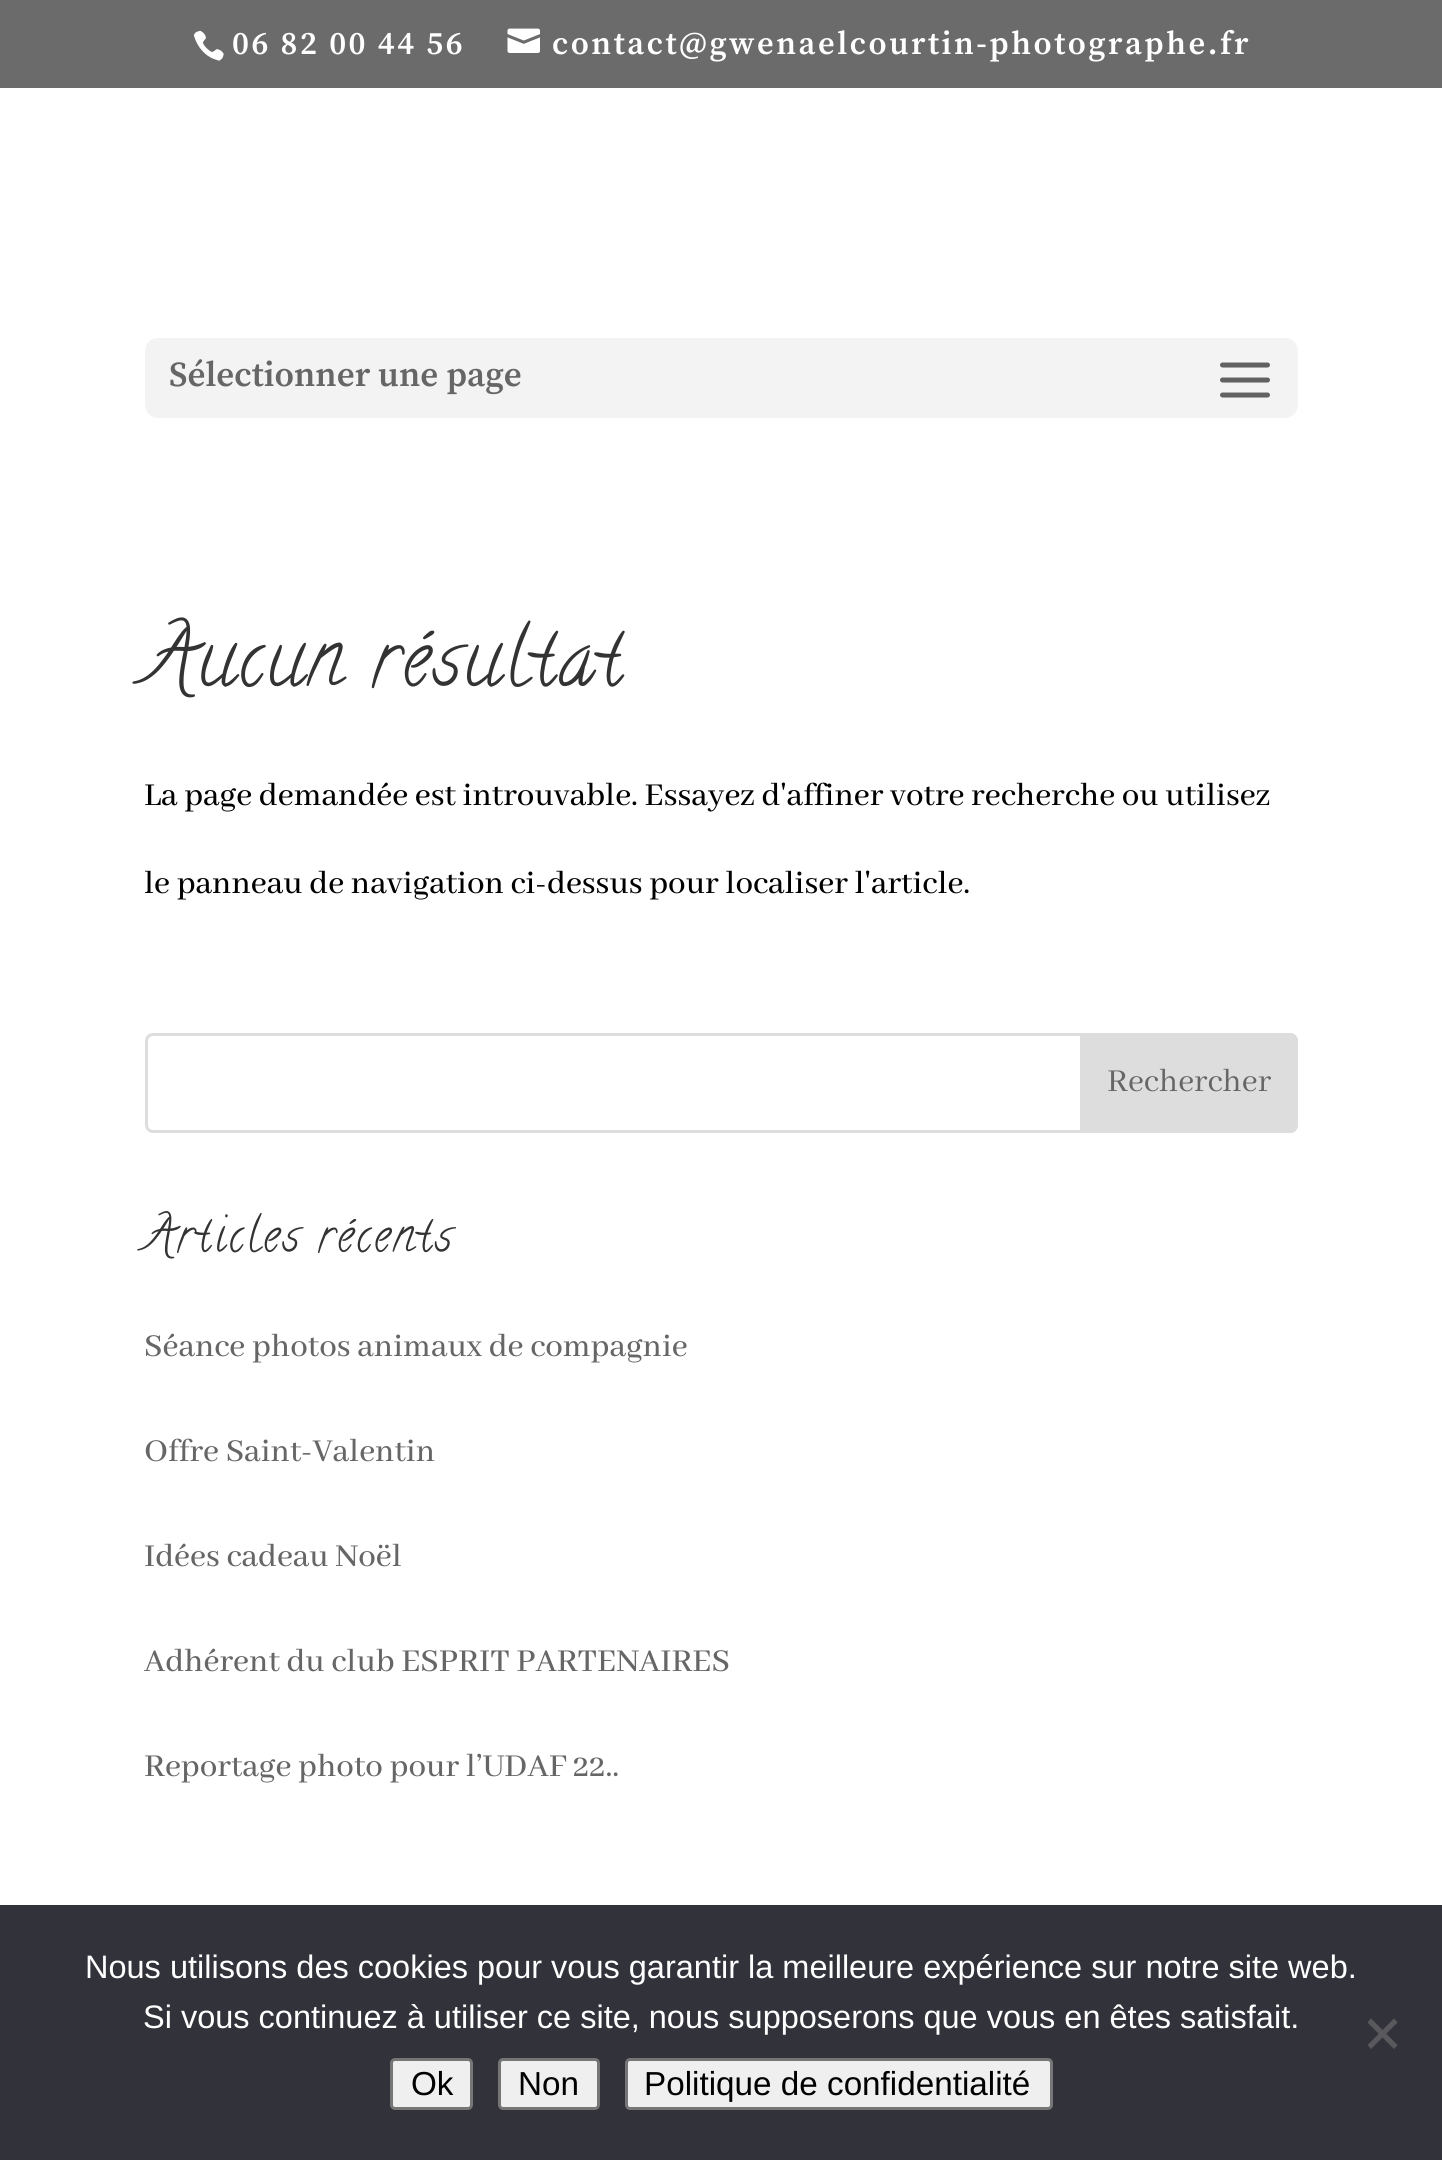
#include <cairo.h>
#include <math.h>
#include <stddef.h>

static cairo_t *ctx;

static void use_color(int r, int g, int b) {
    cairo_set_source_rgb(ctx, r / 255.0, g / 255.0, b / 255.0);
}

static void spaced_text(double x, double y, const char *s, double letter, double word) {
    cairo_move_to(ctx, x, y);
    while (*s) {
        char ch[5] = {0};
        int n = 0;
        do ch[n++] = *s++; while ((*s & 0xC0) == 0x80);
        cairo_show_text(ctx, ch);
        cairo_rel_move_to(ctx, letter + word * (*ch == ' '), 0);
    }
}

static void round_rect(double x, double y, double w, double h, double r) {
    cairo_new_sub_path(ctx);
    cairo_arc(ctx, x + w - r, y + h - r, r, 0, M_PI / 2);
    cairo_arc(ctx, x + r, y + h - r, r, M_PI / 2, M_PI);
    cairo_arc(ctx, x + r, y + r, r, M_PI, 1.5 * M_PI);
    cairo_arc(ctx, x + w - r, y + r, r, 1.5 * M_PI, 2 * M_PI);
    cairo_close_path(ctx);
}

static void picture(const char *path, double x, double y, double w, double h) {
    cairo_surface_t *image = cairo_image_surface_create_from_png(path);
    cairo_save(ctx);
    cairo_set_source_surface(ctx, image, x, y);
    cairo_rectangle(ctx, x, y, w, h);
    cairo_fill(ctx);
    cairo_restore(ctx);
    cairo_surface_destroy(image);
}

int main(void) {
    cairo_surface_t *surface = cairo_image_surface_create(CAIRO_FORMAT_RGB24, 1442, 2160);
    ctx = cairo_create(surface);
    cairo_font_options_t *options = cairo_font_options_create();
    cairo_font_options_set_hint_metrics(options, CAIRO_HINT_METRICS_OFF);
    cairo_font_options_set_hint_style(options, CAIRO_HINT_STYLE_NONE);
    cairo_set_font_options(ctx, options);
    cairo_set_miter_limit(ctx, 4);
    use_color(255, 255, 255);
    cairo_paint(ctx);
    use_color(107, 107, 107);
    cairo_rectangle(ctx, 0, 0, 1442, 88);
    cairo_fill(ctx);
    picture("img1.png", 193, 30, 31, 31);
    cairo_select_font_face(ctx, "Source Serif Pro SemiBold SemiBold", CAIRO_FONT_SLANT_NORMAL, CAIRO_FONT_WEIGHT_NORMAL);
    cairo_set_font_size(ctx, 32.5);
    use_color(255, 255, 255);
    spaced_text(232, 54, "06 82 00 44 56", 2.5, 0);
    picture("img2.png", 507, 28, 33, 25);
    spaced_text(552, 54, "contact@gwenaelcourtin-photographe.fr", 2.5, 0);
    use_color(243, 243, 243);
    round_rect(145, 338, 1153, 80, 13);
    cairo_fill(ctx);
    cairo_set_font_size(ctx, 35);
    use_color(102, 102, 102);
    cairo_move_to(ctx, 169, 386);
    cairo_show_text(ctx, "Sélectionner une page");
    picture("img3.png", 1220, 362, 50, 36);
    cairo_select_font_face(ctx, "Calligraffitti", CAIRO_FONT_SLANT_NORMAL, CAIRO_FONT_WEIGHT_NORMAL);
    cairo_set_font_size(ctx, 80);
    use_color(51, 51, 51);
    spaced_text(144, 683, "Aucun résultat", 2.5, 0);
    cairo_select_font_face(ctx, "Abhaya Libre Medium Medium", CAIRO_FONT_SLANT_NORMAL, CAIRO_FONT_WEIGHT_NORMAL);
    cairo_set_font_size(ctx, 35);
    use_color(0, 0, 0);
    cairo_move_to(ctx, 144, 805);
    cairo_show_text(ctx, "La page demandée est introuvable. Essayez d'affiner votre recherche ou utilisez");
    cairo_move_to(ctx, 144, 893);
    cairo_show_text(ctx, "le panneau de navigation ci-dessus pour localiser l'article.");
    round_rect(146.5, 1034.5, 1150, 97, 6.5);
    use_color(221, 221, 221);
    cairo_set_line_width(ctx, 3);
    cairo_stroke(ctx);
    cairo_new_path(ctx);
    cairo_move_to(ctx, 1081.5, 1034.5);
    cairo_line_to(ctx, 1290, 1034.5);
    cairo_curve_to(ctx, 1293.5, 1034.5, 1296.5, 1037.5, 1296.5, 1041);
    cairo_line_to(ctx, 1296.5, 1125);
    cairo_curve_to(ctx, 1296.5, 1128.5, 1293.5, 1131.5, 1290, 1131.5);
    cairo_line_to(ctx, 1081.5, 1131.5);
    cairo_close_path(ctx);
    cairo_fill_preserve(ctx);
    cairo_stroke(ctx);
    cairo_select_font_face(ctx, "Abhaya Libre", CAIRO_FONT_SLANT_NORMAL, CAIRO_FONT_WEIGHT_NORMAL);
    use_color(102, 102, 102);
    cairo_move_to(ctx, 1107, 1091);
    cairo_show_text(ctx, "Rechercher");
    cairo_select_font_face(ctx, "Calligraffitti", CAIRO_FONT_SLANT_NORMAL, CAIRO_FONT_WEIGHT_NORMAL);
    cairo_set_font_size(ctx, 47.5);
    use_color(51, 51, 51);
    spaced_text(144, 1250, "Articles récents", 2.5, 0);
    cairo_select_font_face(ctx, "Abhaya Libre Medium Medium", CAIRO_FONT_SLANT_NORMAL, CAIRO_FONT_WEIGHT_NORMAL);
    cairo_set_font_size(ctx, 35);
    use_color(102, 102, 102);
    cairo_move_to(ctx, 144, 1356);
    cairo_show_text(ctx, "Séance photos animaux de compagnie");
    cairo_move_to(ctx, 144, 1461);
    cairo_show_text(ctx, "Offre Saint-Valentin");
    cairo_move_to(ctx, 144, 1566);
    cairo_show_text(ctx, "Idées cadeau Noël");
    cairo_move_to(ctx, 144, 1671);
    cairo_show_text(ctx, "Adhérent du club ESPRIT PARTENAIRES");
    cairo_move_to(ctx, 144, 1776);
    cairo_show_text(ctx, "Reportage photo pour l’UDAF 22..");
    use_color(50, 50, 58);
    cairo_rectangle(ctx, 0, 1905, 1442, 255);
    cairo_fill(ctx);
    cairo_select_font_face(ctx, "Liberation Sans", CAIRO_FONT_SLANT_NORMAL, CAIRO_FONT_WEIGHT_NORMAL);
    cairo_set_font_size(ctx, 32.5);
    use_color(255, 255, 255);
    cairo_move_to(ctx, 85, 1978);
    cairo_show_text(ctx, "Nous utilisons des cookies pour vous garantir la meilleure expérience sur notre site web.");
    cairo_move_to(ctx, 143, 2028);
    cairo_show_text(ctx, "Si vous continuez à utiliser ce site, nous supposerons que vous en êtes satisfait.");
    use_color(89, 89, 93);
    cairo_new_path(ctx);
    cairo_move_to(ctx, 1394, 2018.5);
    cairo_line_to(ctx, 1397.5, 2022.5);
    cairo_line_to(ctx, 1371, 2049);
    cairo_line_to(ctx, 1367.5, 2045);
    cairo_close_path(ctx);
    cairo_fill(ctx);
    cairo_new_path(ctx);
    cairo_move_to(ctx, 1367.5, 2022.5);
    cairo_line_to(ctx, 1371, 2018.5);
    cairo_line_to(ctx, 1397.5, 2045);
    cairo_line_to(ctx, 1394, 2049);
    cairo_close_path(ctx);
    cairo_fill(ctx);
    use_color(239, 239, 239);
    round_rect(391.5, 2059.5, 80, 49, 3.5);
    cairo_fill_preserve(ctx);
    use_color(118, 118, 118);
    cairo_stroke(ctx);
    cairo_set_font_size(ctx, 33.25);
    use_color(0, 0, 0);
    cairo_move_to(ctx, 411, 2095);
    cairo_show_text(ctx, "Ok");
    use_color(239, 239, 239);
    round_rect(499.5, 2059.5, 99, 49, 3.5);
    cairo_fill_preserve(ctx);
    use_color(118, 118, 118);
    cairo_stroke(ctx);
    use_color(0, 0, 0);
    cairo_move_to(ctx, 518, 2095);
    cairo_show_text(ctx, "Non");
    use_color(239, 239, 239);
    round_rect(626.5, 2059.5, 425, 49, 3.5);
    cairo_fill_preserve(ctx);
    use_color(118, 118, 118);
    cairo_stroke(ctx);
    use_color(0, 0, 0);
    cairo_move_to(ctx, 644, 2095);
    cairo_show_text(ctx, "Politique de confidentialité");
    cairo_surface_write_to_png(surface, "result.png");
    cairo_font_options_destroy(options);
    cairo_destroy(ctx);
    cairo_surface_destroy(surface);
    return 0;
}
